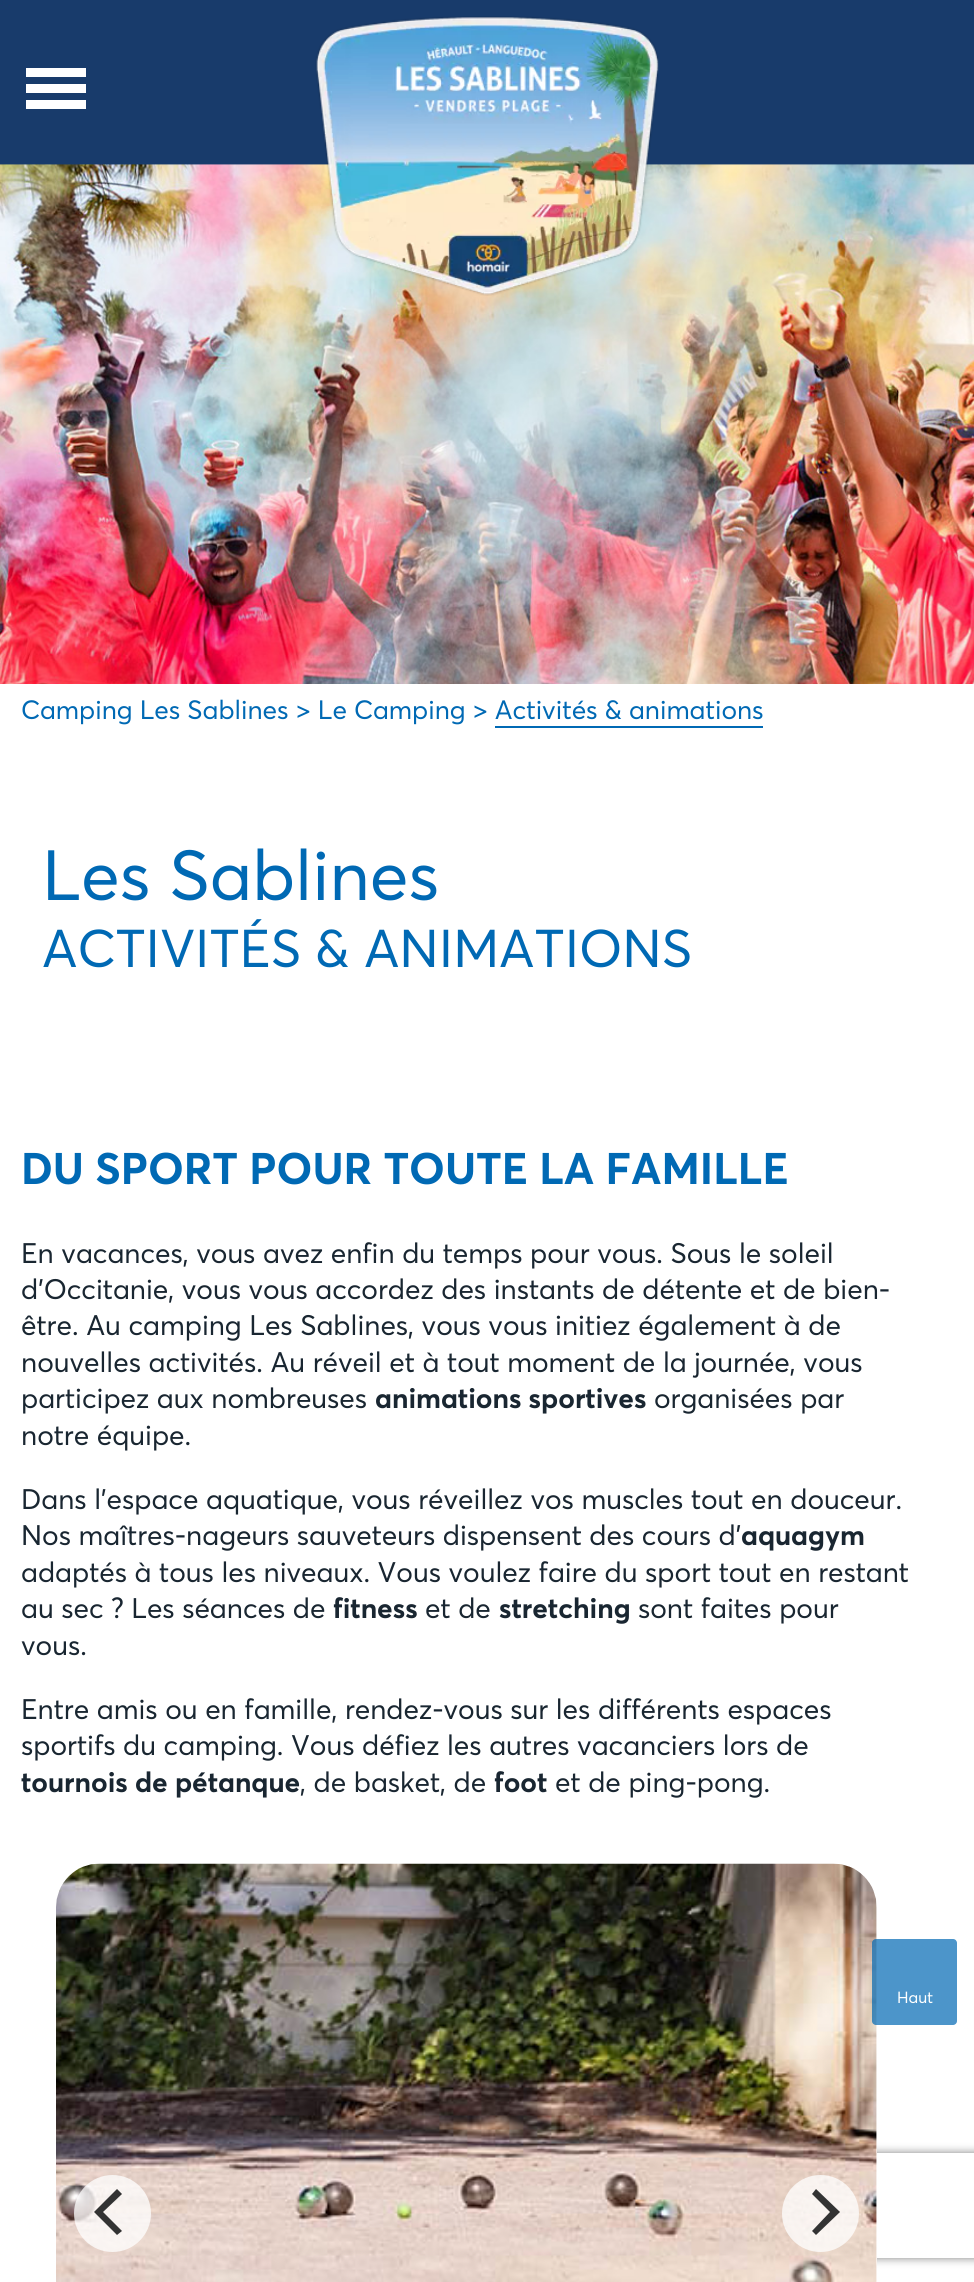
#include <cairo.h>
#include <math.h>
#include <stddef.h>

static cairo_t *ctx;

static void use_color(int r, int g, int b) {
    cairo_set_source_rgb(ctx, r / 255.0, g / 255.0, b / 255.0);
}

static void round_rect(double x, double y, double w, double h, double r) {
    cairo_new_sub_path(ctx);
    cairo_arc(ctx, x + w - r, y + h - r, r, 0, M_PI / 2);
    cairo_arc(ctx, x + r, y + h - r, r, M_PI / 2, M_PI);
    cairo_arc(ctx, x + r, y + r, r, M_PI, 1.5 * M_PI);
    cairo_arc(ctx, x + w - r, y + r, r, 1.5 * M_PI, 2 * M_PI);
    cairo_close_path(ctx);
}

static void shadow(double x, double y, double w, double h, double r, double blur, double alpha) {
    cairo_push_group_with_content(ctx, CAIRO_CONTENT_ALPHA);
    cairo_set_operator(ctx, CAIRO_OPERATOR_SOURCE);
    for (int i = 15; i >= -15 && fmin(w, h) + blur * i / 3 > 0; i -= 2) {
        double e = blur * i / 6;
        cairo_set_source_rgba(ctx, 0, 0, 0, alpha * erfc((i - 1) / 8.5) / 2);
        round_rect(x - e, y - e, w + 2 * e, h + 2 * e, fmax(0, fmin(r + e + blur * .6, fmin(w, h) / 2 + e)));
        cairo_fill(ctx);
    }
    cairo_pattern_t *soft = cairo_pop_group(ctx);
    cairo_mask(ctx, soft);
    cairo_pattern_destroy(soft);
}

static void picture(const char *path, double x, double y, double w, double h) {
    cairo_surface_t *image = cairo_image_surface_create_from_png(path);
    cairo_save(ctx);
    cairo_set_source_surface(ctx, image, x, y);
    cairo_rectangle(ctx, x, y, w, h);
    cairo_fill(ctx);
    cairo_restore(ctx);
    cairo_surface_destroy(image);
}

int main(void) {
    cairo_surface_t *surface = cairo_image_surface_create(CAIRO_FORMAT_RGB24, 974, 2282);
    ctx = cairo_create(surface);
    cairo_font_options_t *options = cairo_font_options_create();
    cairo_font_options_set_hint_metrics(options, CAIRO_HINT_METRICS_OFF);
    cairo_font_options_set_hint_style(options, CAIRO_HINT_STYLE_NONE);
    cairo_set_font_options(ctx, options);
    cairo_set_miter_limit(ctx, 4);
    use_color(255, 255, 255);
    cairo_paint(ctx);
    use_color(24, 59, 107);
    cairo_rectangle(ctx, 0, 0, 974, 165);
    cairo_fill(ctx);
    use_color(255, 255, 255);
    cairo_rectangle(ctx, 26, 68, 60, 9);
    cairo_fill(ctx);
    cairo_rectangle(ctx, 26, 84, 60, 9);
    cairo_fill(ctx);
    cairo_rectangle(ctx, 26, 100, 60, 9);
    cairo_fill(ctx);
    picture("img2.png", 0, 164, 974, 520);
    picture("img1.png", 315, 16, 344, 280);
    cairo_select_font_face(ctx, "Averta", CAIRO_FONT_SLANT_NORMAL, CAIRO_FONT_WEIGHT_NORMAL);
    cairo_set_font_size(ctx, 26.25);
    use_color(0, 105, 180);
    cairo_move_to(ctx, 21, 719);
    cairo_show_text(ctx, "Camping Les Sablines > Le Camping > Activités & animations");
    cairo_rectangle(ctx, 495, 726, 268, 2);
    cairo_fill(ctx);
    cairo_set_font_size(ctx, 70);
    cairo_move_to(ctx, 42, 900);
    cairo_show_text(ctx, "Les Sablines");
    cairo_set_font_size(ctx, 52.5);
    cairo_move_to(ctx, 42, 967);
    cairo_show_text(ctx, "ACTIVITÉS & ANIMATIONS");
    cairo_select_font_face(ctx, "Averta", CAIRO_FONT_SLANT_NORMAL, CAIRO_FONT_WEIGHT_BOLD);
    cairo_set_font_size(ctx, 43.75);
    cairo_move_to(ctx, 21, 1184);
    cairo_show_text(ctx, "DU SPORT POUR TOUTE LA FAMILLE");
    cairo_select_font_face(ctx, "Averta", CAIRO_FONT_SLANT_NORMAL, CAIRO_FONT_WEIGHT_NORMAL);
    cairo_set_font_size(ctx, 28);
    use_color(25, 38, 49);
    cairo_move_to(ctx, 21, 1263);
    cairo_show_text(ctx, "En vacances, vous avez enfin du temps pour vous. Sous le soleil");
    cairo_move_to(ctx, 21, 1299);
    cairo_show_text(ctx, "d’Occitanie, vous vous accordez des instants de détente et de bien-");
    cairo_move_to(ctx, 21, 1335);
    cairo_show_text(ctx, "être. Au camping Les Sablines, vous vous initiez également à de");
    cairo_move_to(ctx, 21, 1372);
    cairo_show_text(ctx, "nouvelles activités. Au réveil et à tout moment de la journée, vous");
    cairo_move_to(ctx, 21, 1408);
    cairo_show_text(ctx, "participez aux nombreuses");
    cairo_select_font_face(ctx, "Averta", CAIRO_FONT_SLANT_NORMAL, CAIRO_FONT_WEIGHT_BOLD);
    cairo_move_to(ctx, 375, 1408);
    cairo_show_text(ctx, "animations sportives");
    cairo_select_font_face(ctx, "Averta", CAIRO_FONT_SLANT_NORMAL, CAIRO_FONT_WEIGHT_NORMAL);
    cairo_move_to(ctx, 654, 1408);
    cairo_show_text(ctx, "organisées par");
    cairo_move_to(ctx, 21, 1445);
    cairo_show_text(ctx, "notre équipe.");
    cairo_move_to(ctx, 21, 1509);
    cairo_show_text(ctx, "Dans l’espace aquatique, vous réveillez vos muscles tout en douceur.");
    cairo_move_to(ctx, 21, 1545);
    cairo_show_text(ctx, "Nos maîtres-nageurs sauveteurs dispensent des cours d’");
    cairo_select_font_face(ctx, "Averta", CAIRO_FONT_SLANT_NORMAL, CAIRO_FONT_WEIGHT_BOLD);
    cairo_move_to(ctx, 741, 1545);
    cairo_show_text(ctx, "aquagym");
    cairo_select_font_face(ctx, "Averta", CAIRO_FONT_SLANT_NORMAL, CAIRO_FONT_WEIGHT_NORMAL);
    cairo_move_to(ctx, 21, 1582);
    cairo_show_text(ctx, "adaptés à tous les niveaux. Vous voulez faire du sport tout en restant");
    cairo_move_to(ctx, 21, 1618);
    cairo_show_text(ctx, "au sec ? Les séances de");
    cairo_select_font_face(ctx, "Averta", CAIRO_FONT_SLANT_NORMAL, CAIRO_FONT_WEIGHT_BOLD);
    cairo_move_to(ctx, 333, 1618);
    cairo_show_text(ctx, "fitness");
    cairo_select_font_face(ctx, "Averta", CAIRO_FONT_SLANT_NORMAL, CAIRO_FONT_WEIGHT_NORMAL);
    cairo_move_to(ctx, 425, 1618);
    cairo_show_text(ctx, "et de");
    cairo_select_font_face(ctx, "Averta", CAIRO_FONT_SLANT_NORMAL, CAIRO_FONT_WEIGHT_BOLD);
    cairo_move_to(ctx, 499, 1618);
    cairo_show_text(ctx, "stretching");
    cairo_select_font_face(ctx, "Averta", CAIRO_FONT_SLANT_NORMAL, CAIRO_FONT_WEIGHT_NORMAL);
    cairo_move_to(ctx, 638, 1618);
    cairo_show_text(ctx, "sont faites pour");
    cairo_move_to(ctx, 21, 1655);
    cairo_show_text(ctx, "vous.");
    cairo_move_to(ctx, 21, 1719);
    cairo_show_text(ctx, "Entre amis ou en famille, rendez-vous sur les différents espaces");
    cairo_move_to(ctx, 21, 1755);
    cairo_show_text(ctx, "sportifs du camping. Vous défiez les autres vacanciers lors de");
    cairo_select_font_face(ctx, "Averta", CAIRO_FONT_SLANT_NORMAL, CAIRO_FONT_WEIGHT_BOLD);
    cairo_move_to(ctx, 21, 1792);
    cairo_show_text(ctx, "tournois de pétanque");
    cairo_select_font_face(ctx, "Averta", CAIRO_FONT_SLANT_NORMAL, CAIRO_FONT_WEIGHT_NORMAL);
    cairo_move_to(ctx, 300, 1792);
    cairo_show_text(ctx, ", de basket, de");
    cairo_select_font_face(ctx, "Averta", CAIRO_FONT_SLANT_NORMAL, CAIRO_FONT_WEIGHT_BOLD);
    cairo_move_to(ctx, 494, 1792);
    cairo_show_text(ctx, "foot");
    cairo_select_font_face(ctx, "Averta", CAIRO_FONT_SLANT_NORMAL, CAIRO_FONT_WEIGHT_NORMAL);
    cairo_move_to(ctx, 555, 1792);
    cairo_show_text(ctx, "et de ping-pong.");
    cairo_save(ctx);
    cairo_set_fill_rule(ctx, CAIRO_FILL_RULE_EVEN_ODD);
    cairo_new_path(ctx);
    cairo_move_to(ctx, 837, 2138);
    cairo_line_to(ctx, 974, 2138);
    cairo_line_to(ctx, 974, 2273);
    cairo_line_to(ctx, 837, 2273);
    cairo_close_path(ctx);
    cairo_move_to(ctx, 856, 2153);
    cairo_line_to(ctx, 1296, 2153);
    cairo_curve_to(ctx, 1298, 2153, 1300, 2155, 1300, 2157);
    cairo_line_to(ctx, 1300, 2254);
    cairo_curve_to(ctx, 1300, 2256, 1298, 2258, 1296, 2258);
    cairo_line_to(ctx, 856, 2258);
    cairo_curve_to(ctx, 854, 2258, 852, 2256, 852, 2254);
    cairo_line_to(ctx, 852, 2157);
    cairo_curve_to(ctx, 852, 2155, 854, 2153, 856, 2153);
    cairo_close_path(ctx);
    cairo_clip(ctx);
    use_color(128, 128, 128);
    shadow(852, 2153, 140, 105, 4, 4.5, 1);
    cairo_restore(ctx);
    use_color(255, 255, 255);
    round_rect(56, 1829, 821, 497, 44);
    cairo_fill(ctx);
    picture("img3.png", 56, 1863, 821, 419);
    cairo_set_source_rgba(ctx, 1, 1, 1, 0.75);
    cairo_arc(ctx, 112.5, 2213.5, 38.5, 0, 2 * M_PI);
    cairo_fill(ctx);
    use_color(51, 51, 51);
    cairo_new_path(ctx);
    cairo_move_to(ctx, 94, 2212);
    cairo_line_to(ctx, 117, 2235);
    cairo_line_to(ctx, 122, 2231);
    cairo_line_to(ctx, 103, 2212);
    cairo_line_to(ctx, 122, 2194);
    cairo_line_to(ctx, 117, 2189);
    cairo_close_path(ctx);
    cairo_fill(ctx);
    cairo_set_source_rgba(ctx, 1, 1, 1, 0.75);
    cairo_arc(ctx, 820.5, 2213.5, 38.5, 0, 2 * M_PI);
    cairo_fill(ctx);
    use_color(51, 51, 51);
    cairo_new_path(ctx);
    cairo_move_to(ctx, 840, 2212);
    cairo_line_to(ctx, 816, 2189);
    cairo_line_to(ctx, 812, 2194);
    cairo_line_to(ctx, 830, 2212);
    cairo_line_to(ctx, 812, 2231);
    cairo_line_to(ctx, 816, 2235);
    cairo_close_path(ctx);
    cairo_fill(ctx);
    cairo_set_source_rgba(ctx, 0, 0.412, 0.706, 0.7);
    round_rect(872, 1939, 85, 86, 4);
    cairo_fill(ctx);
    cairo_set_font_size(ctx, 16);
    use_color(255, 255, 255);
    cairo_move_to(ctx, 897, 2003);
    cairo_show_text(ctx, "Haut");
    cairo_surface_write_to_png(surface, "result.png");
    cairo_font_options_destroy(options);
    cairo_destroy(ctx);
    cairo_surface_destroy(surface);
    return 0;
}
